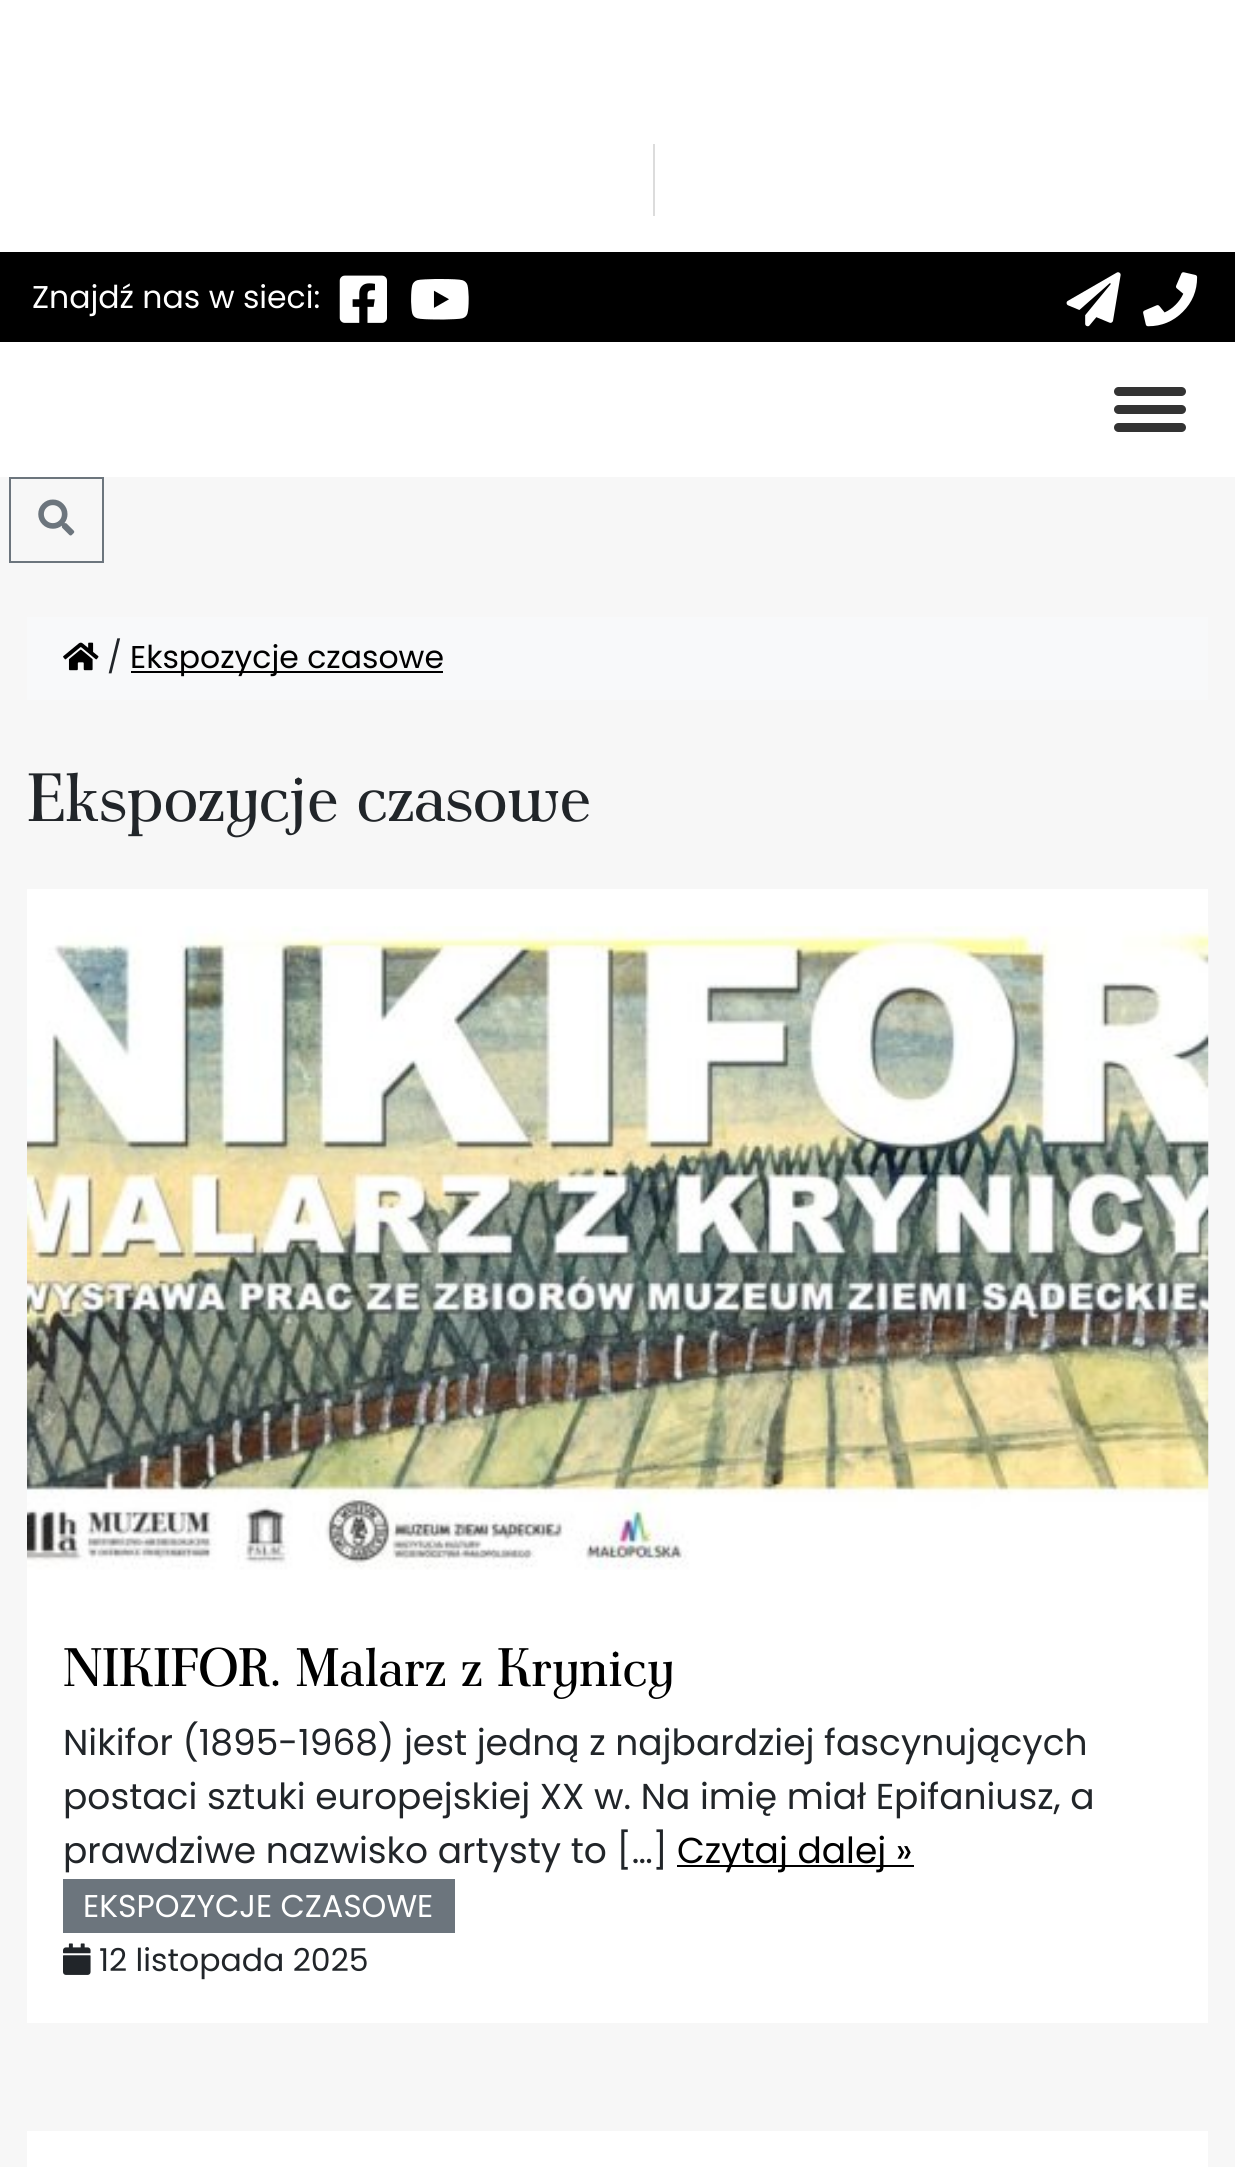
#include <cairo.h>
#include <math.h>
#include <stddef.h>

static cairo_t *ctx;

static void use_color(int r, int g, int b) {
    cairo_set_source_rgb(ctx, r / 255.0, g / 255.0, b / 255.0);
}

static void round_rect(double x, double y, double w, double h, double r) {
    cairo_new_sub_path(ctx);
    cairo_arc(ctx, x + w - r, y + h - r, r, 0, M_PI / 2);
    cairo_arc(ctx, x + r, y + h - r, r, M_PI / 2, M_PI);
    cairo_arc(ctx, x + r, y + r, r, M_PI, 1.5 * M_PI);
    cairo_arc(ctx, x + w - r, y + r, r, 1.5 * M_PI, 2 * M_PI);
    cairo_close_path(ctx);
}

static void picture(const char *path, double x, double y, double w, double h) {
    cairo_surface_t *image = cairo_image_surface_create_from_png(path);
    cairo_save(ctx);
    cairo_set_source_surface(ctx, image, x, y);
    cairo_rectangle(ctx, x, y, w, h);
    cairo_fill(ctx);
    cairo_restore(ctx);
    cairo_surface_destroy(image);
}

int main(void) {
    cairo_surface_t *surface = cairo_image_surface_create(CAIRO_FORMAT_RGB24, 1235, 2167);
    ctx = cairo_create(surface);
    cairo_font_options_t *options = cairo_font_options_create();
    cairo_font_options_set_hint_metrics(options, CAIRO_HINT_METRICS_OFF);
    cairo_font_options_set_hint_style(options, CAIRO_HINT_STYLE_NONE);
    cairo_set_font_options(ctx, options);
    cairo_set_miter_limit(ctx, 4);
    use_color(247, 247, 247);
    cairo_paint(ctx);
    use_color(255, 255, 255);
    cairo_rectangle(ctx, 0, 0, 1235, 252);
    cairo_fill(ctx);
    use_color(220, 220, 220);
    cairo_rectangle(ctx, 653, 144, 2, 72);
    cairo_fill(ctx);
    use_color(0, 0, 0);
    cairo_rectangle(ctx, 0, 252, 1235, 90);
    cairo_fill(ctx);
    cairo_select_font_face(ctx, "Poppins", CAIRO_FONT_SLANT_NORMAL, CAIRO_FONT_WEIGHT_NORMAL);
    cairo_set_font_size(ctx, 31.5);
    use_color(255, 255, 255);
    cairo_move_to(ctx, 32, 308);
    cairo_show_text(ctx, "Znajdź nas w sieci:");
    picture("img1.png", 339, 275, 48, 48);
    picture("img2.png", 411, 279, 58, 41);
    picture("img3.png", 1066, 272, 55, 55);
    picture("img4.png", 1143, 272, 55, 55);
    cairo_rectangle(ctx, 0, 342, 1235, 135);
    cairo_fill(ctx);
    use_color(51, 51, 51);
    round_rect(1114, 387, 72, 9, 4.5);
    cairo_fill(ctx);
    round_rect(1114, 405, 72, 9, 4.5);
    cairo_fill(ctx);
    round_rect(1114, 423, 72, 9, 4.5);
    cairo_fill(ctx);
    cairo_rectangle(ctx, 10, 478, 93, 84);
    use_color(108, 117, 125);
    cairo_stroke(ctx);
    picture("img5.png", 38, 499, 37, 37);
    use_color(248, 249, 250);
    cairo_rectangle(ctx, 27, 617, 1181, 83);
    cairo_fill(ctx);
    picture("img6.png", 63, 642, 36, 29);
    use_color(33, 37, 41);
    cairo_move_to(ctx, 107, 668);
    cairo_show_text(ctx, "/");
    use_color(0, 0, 0);
    cairo_rectangle(ctx, 131, 671, 312, 2);
    cairo_fill(ctx);
    cairo_move_to(ctx, 130, 668);
    cairo_show_text(ctx, "Ekspozycje czasowe");
    cairo_select_font_face(ctx, "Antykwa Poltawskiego", CAIRO_FONT_SLANT_NORMAL, CAIRO_FONT_WEIGHT_NORMAL);
    cairo_set_font_size(ctx, 68);
    use_color(33, 37, 41);
    cairo_move_to(ctx, 27, 821);
    cairo_show_text(ctx, "Ekspozycje czasowe");
    use_color(255, 255, 255);
    cairo_rectangle(ctx, 27, 889, 1181, 1134);
    cairo_fill(ctx);
    picture("img7.png", 27, 926, 1182, 644);
    cairo_set_font_size(ctx, 54);
    use_color(0, 0, 0);
    cairo_move_to(ctx, 63, 1686);
    cairo_show_text(ctx, "NIKIFOR. Malarz z Krynicy");
    cairo_select_font_face(ctx, "Poppins", CAIRO_FONT_SLANT_NORMAL, CAIRO_FONT_WEIGHT_NORMAL);
    cairo_set_font_size(ctx, 36);
    use_color(33, 37, 41);
    cairo_move_to(ctx, 63, 1755);
    cairo_show_text(ctx, "Nikifor (1895-1968) jest jedną z najbardziej fascynujących");
    cairo_move_to(ctx, 63, 1809);
    cairo_show_text(ctx, "postaci sztuki europejskiej XX w. Na imię miał Epifaniusz, a");
    cairo_move_to(ctx, 63, 1863);
    cairo_show_text(ctx, "prawdziwe nazwisko artysty to […]");
    use_color(0, 0, 0);
    cairo_rectangle(ctx, 677, 1865, 237, 2);
    cairo_fill(ctx);
    cairo_move_to(ctx, 677, 1863);
    cairo_show_text(ctx, "Czytaj dalej »");
    use_color(108, 117, 125);
    cairo_rectangle(ctx, 63, 1879, 392, 54);
    cairo_fill(ctx);
    cairo_set_font_size(ctx, 31.5);
    use_color(255, 255, 255);
    cairo_move_to(ctx, 83, 1917);
    cairo_show_text(ctx, "EKSPOZYCJE CZASOWE");
    picture("img8.png", 63, 1943, 28, 32);
    use_color(33, 37, 41);
    cairo_move_to(ctx, 99, 1971);
    cairo_show_text(ctx, "12 listopada 2025");
    use_color(255, 255, 255);
    cairo_rectangle(ctx, 27, 2131, 1181, 36);
    cairo_fill(ctx);
    cairo_surface_write_to_png(surface, "result.png");
    cairo_font_options_destroy(options);
    cairo_destroy(ctx);
    cairo_surface_destroy(surface);
    return 0;
}
